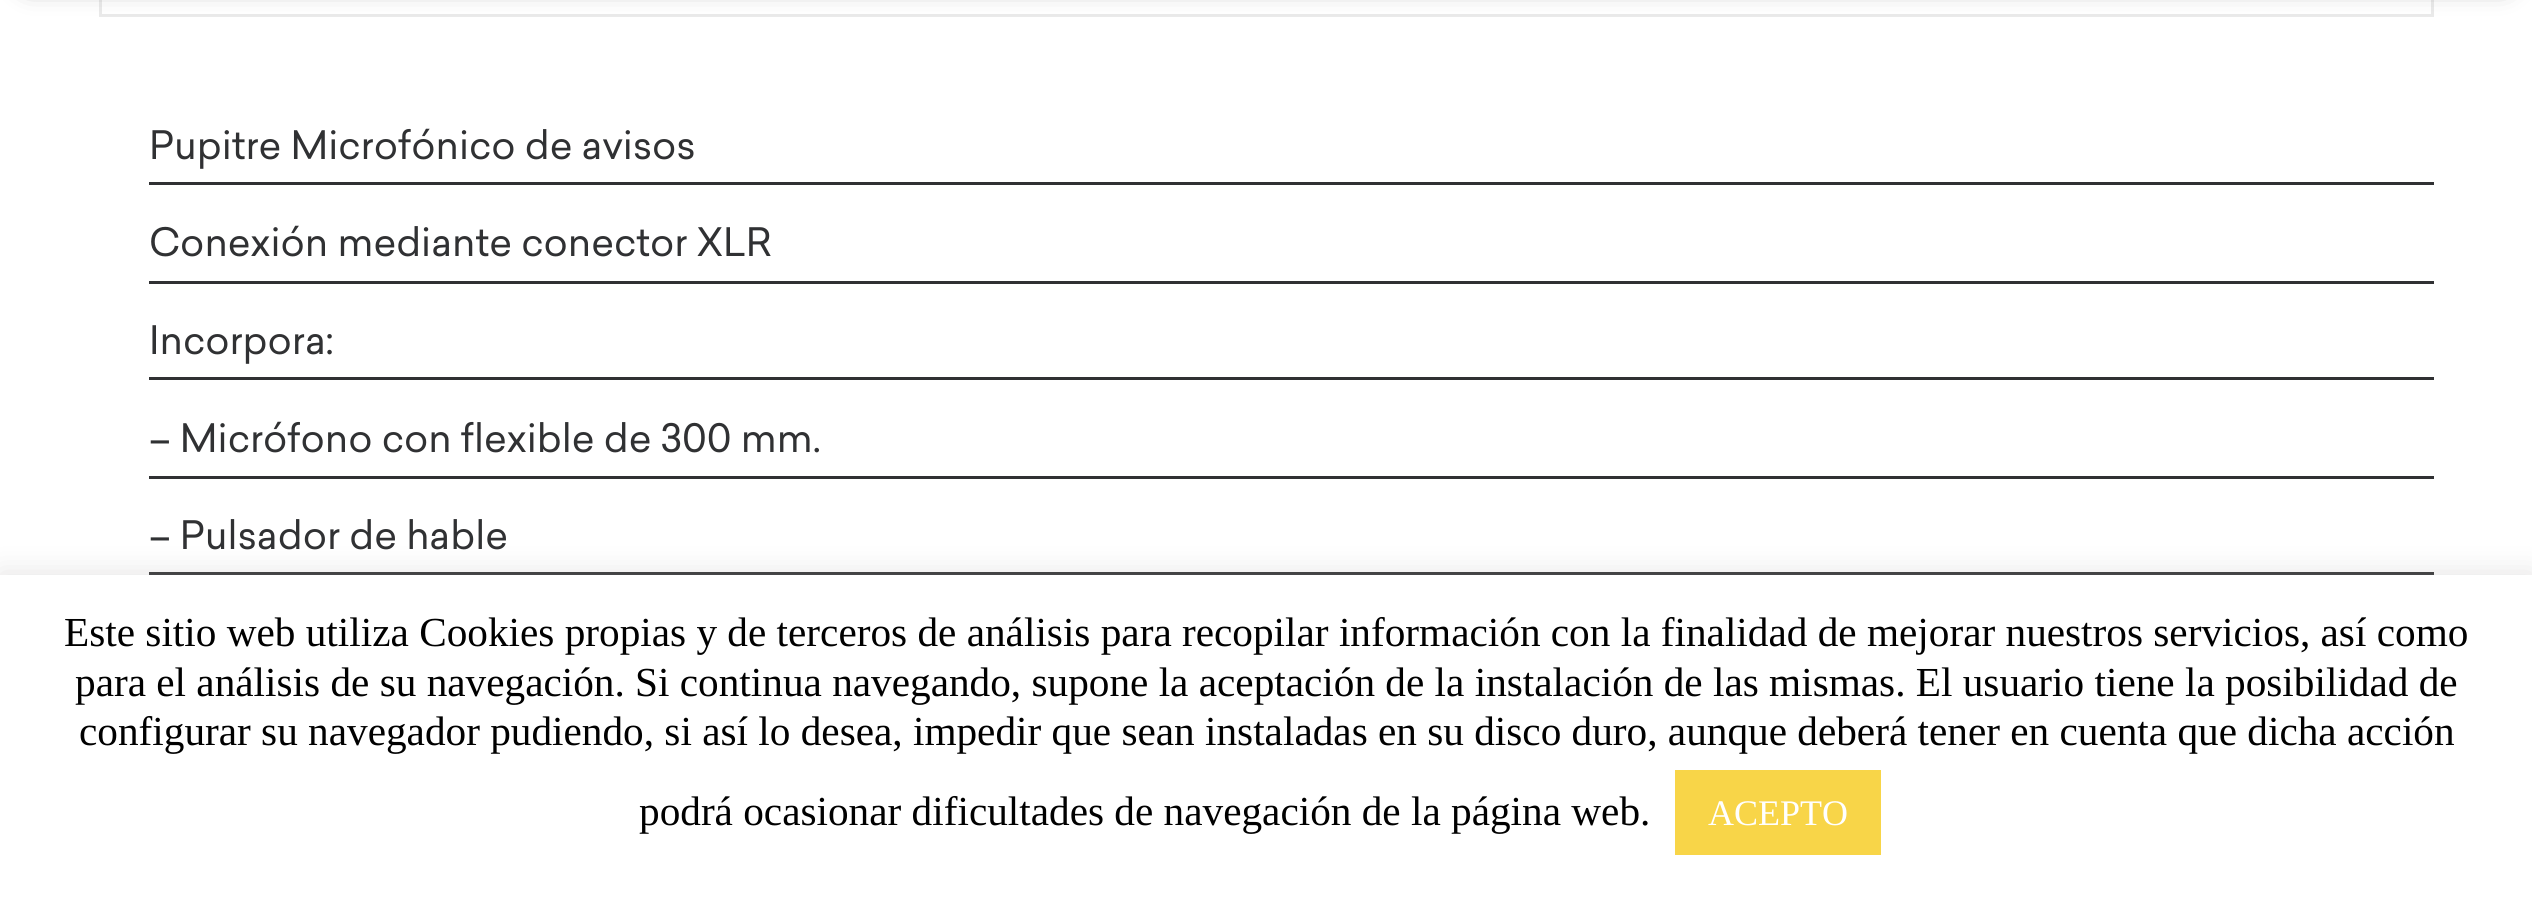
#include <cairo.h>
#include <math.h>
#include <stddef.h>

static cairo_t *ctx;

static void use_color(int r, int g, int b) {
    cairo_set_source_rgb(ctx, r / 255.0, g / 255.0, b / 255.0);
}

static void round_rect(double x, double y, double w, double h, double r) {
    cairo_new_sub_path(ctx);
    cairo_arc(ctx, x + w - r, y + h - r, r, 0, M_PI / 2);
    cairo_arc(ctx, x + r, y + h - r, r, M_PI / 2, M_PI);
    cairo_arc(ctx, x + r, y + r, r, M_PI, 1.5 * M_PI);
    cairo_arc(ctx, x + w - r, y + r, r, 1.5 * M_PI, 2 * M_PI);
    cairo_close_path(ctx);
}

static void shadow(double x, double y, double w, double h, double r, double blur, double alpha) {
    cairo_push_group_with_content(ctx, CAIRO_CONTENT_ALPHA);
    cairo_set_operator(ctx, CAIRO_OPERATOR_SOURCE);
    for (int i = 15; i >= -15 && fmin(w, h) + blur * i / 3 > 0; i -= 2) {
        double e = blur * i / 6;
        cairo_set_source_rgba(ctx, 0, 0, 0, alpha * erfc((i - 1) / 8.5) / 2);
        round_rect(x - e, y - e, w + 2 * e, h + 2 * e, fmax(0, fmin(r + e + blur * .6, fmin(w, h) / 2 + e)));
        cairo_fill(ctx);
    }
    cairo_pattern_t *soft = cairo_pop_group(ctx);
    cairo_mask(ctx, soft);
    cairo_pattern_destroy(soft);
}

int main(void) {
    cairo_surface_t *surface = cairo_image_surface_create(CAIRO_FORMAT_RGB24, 2532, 901);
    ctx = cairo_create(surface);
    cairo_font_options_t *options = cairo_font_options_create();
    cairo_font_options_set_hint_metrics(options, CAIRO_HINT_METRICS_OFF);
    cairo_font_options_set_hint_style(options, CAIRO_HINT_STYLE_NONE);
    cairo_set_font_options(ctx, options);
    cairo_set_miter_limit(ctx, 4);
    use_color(255, 255, 255);
    cairo_paint(ctx);
    cairo_rectangle(ctx, 100.5, -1.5, 2332, 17);
    use_color(234, 234, 234);
    cairo_set_line_width(ctx, 3);
    cairo_stroke(ctx);
    use_color(0, 0, 0);
    shadow(28, -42, 2477, 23, 0, 14, 0.6);
    use_color(48, 49, 51);
    cairo_rectangle(ctx, 149, 182, 2285, 3);
    cairo_fill(ctx);
    cairo_select_font_face(ctx, "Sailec", CAIRO_FONT_SLANT_NORMAL, CAIRO_FONT_WEIGHT_NORMAL);
    cairo_set_font_size(ctx, 38.5);
    cairo_move_to(ctx, 149, 159);
    cairo_show_text(ctx, "Pupitre Microfónico de avisos");
    cairo_rectangle(ctx, 149, 281, 2285, 3);
    cairo_fill(ctx);
    cairo_move_to(ctx, 149, 256);
    cairo_show_text(ctx, "Conexión mediante conector XLR");
    cairo_rectangle(ctx, 149, 377, 2285, 3);
    cairo_fill(ctx);
    cairo_move_to(ctx, 149, 354);
    cairo_show_text(ctx, "Incorpora:");
    cairo_rectangle(ctx, 149, 476, 2285, 3);
    cairo_fill(ctx);
    cairo_move_to(ctx, 149, 452);
    cairo_show_text(ctx, "– Micrófono con flexible de 300 mm.");
    cairo_rectangle(ctx, 149, 572, 2285, 3);
    cairo_fill(ctx);
    cairo_move_to(ctx, 149, 549);
    cairo_show_text(ctx, "– Pulsador de hable");
    use_color(172, 171, 171);
    shadow(0, 572, 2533, 327, 0, 14, 0.3);
    use_color(255, 255, 255);
    cairo_rectangle(ctx, 0, 575, 2532, 326);
    cairo_fill(ctx);
    cairo_select_font_face(ctx, "Liberation Serif", CAIRO_FONT_SLANT_NORMAL, CAIRO_FONT_WEIGHT_NORMAL);
    cairo_set_font_size(ctx, 41.25);
    use_color(0, 0, 0);
    cairo_move_to(ctx, 64, 646);
    cairo_show_text(ctx, "Este sitio web utiliza Cookies propias y de terceros de análisis para recopilar información con la finalidad de mejorar nuestros servicios, así como");
    cairo_move_to(ctx, 75, 696);
    cairo_show_text(ctx, "para el análisis de su navegación. Si continua navegando, supone la aceptación de la instalación de las mismas. El usuario tiene la posibilidad de");
    cairo_move_to(ctx, 79, 745);
    cairo_show_text(ctx, "configurar su navegador pudiendo, si así lo desea, impedir que sean instaladas en su disco duro, aunque deberá tener en cuenta que dicha acción");
    cairo_move_to(ctx, 639, 825);
    cairo_show_text(ctx, "podrá ocasionar dificultades de navegación de la página web.");
    use_color(248, 213, 72);
    cairo_rectangle(ctx, 1675, 770, 206, 85);
    cairo_fill(ctx);
    cairo_set_font_size(ctx, 36);
    use_color(255, 255, 255);
    cairo_move_to(ctx, 1708, 825);
    cairo_show_text(ctx, "ACEPTO");
    cairo_surface_write_to_png(surface, "result.png");
    cairo_font_options_destroy(options);
    cairo_destroy(ctx);
    cairo_surface_destroy(surface);
    return 0;
}
